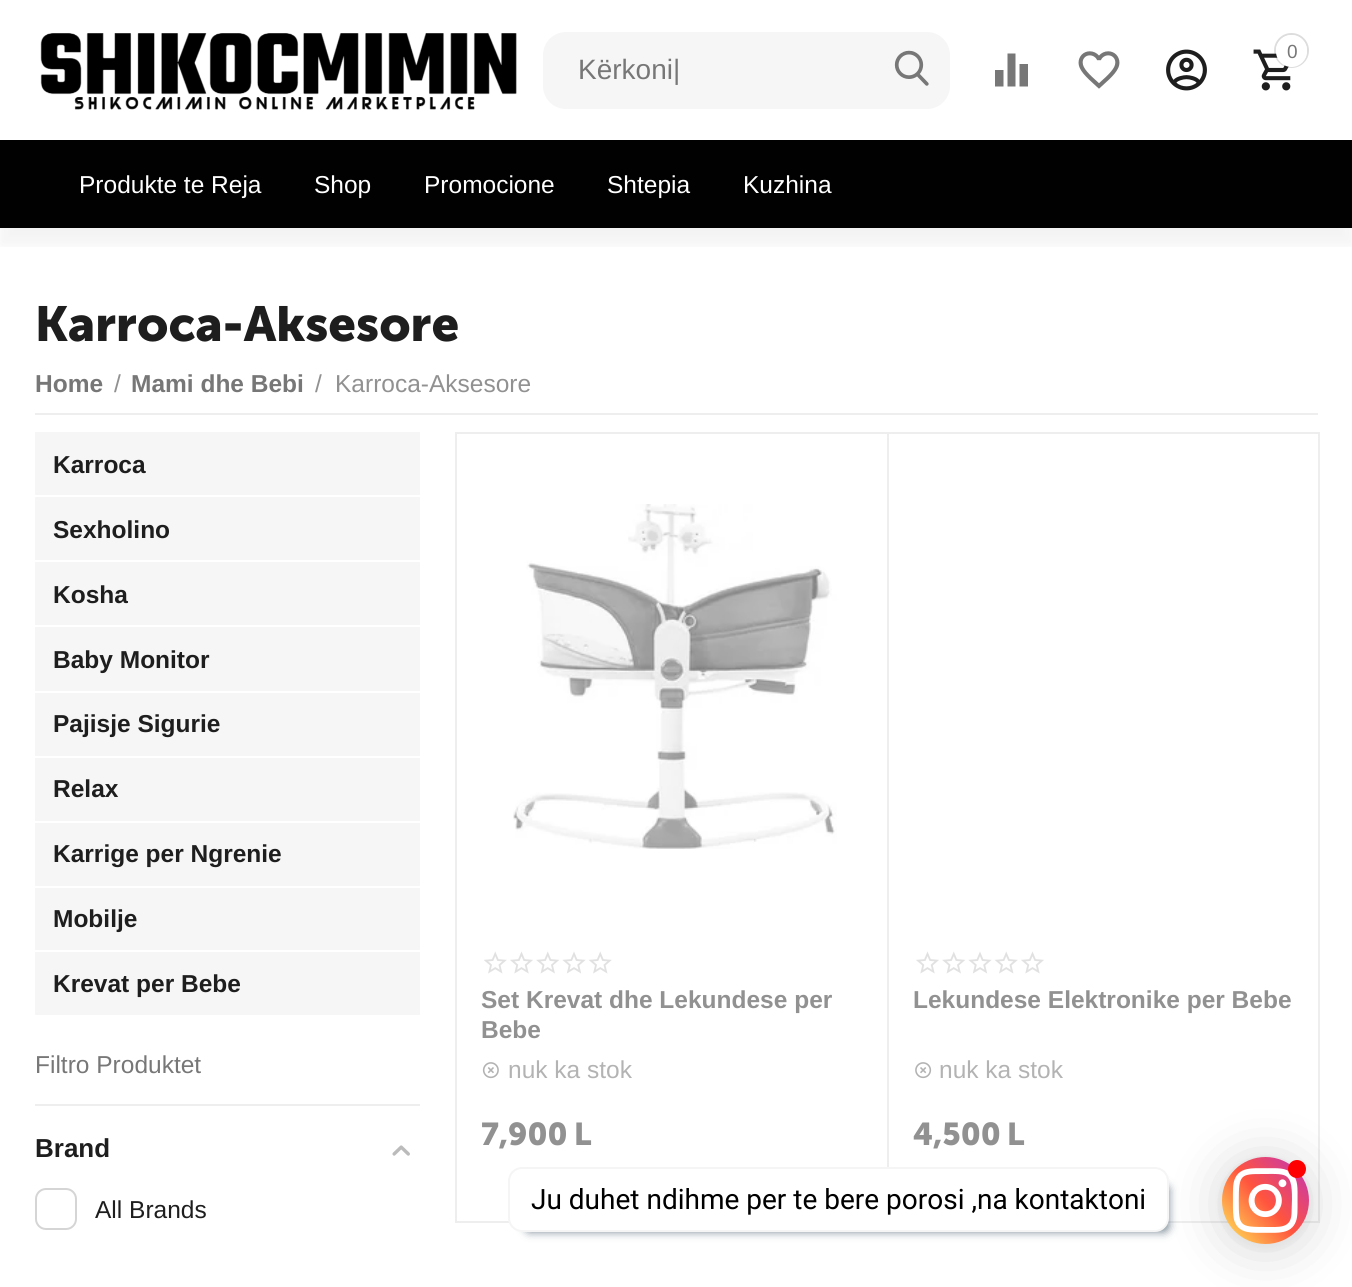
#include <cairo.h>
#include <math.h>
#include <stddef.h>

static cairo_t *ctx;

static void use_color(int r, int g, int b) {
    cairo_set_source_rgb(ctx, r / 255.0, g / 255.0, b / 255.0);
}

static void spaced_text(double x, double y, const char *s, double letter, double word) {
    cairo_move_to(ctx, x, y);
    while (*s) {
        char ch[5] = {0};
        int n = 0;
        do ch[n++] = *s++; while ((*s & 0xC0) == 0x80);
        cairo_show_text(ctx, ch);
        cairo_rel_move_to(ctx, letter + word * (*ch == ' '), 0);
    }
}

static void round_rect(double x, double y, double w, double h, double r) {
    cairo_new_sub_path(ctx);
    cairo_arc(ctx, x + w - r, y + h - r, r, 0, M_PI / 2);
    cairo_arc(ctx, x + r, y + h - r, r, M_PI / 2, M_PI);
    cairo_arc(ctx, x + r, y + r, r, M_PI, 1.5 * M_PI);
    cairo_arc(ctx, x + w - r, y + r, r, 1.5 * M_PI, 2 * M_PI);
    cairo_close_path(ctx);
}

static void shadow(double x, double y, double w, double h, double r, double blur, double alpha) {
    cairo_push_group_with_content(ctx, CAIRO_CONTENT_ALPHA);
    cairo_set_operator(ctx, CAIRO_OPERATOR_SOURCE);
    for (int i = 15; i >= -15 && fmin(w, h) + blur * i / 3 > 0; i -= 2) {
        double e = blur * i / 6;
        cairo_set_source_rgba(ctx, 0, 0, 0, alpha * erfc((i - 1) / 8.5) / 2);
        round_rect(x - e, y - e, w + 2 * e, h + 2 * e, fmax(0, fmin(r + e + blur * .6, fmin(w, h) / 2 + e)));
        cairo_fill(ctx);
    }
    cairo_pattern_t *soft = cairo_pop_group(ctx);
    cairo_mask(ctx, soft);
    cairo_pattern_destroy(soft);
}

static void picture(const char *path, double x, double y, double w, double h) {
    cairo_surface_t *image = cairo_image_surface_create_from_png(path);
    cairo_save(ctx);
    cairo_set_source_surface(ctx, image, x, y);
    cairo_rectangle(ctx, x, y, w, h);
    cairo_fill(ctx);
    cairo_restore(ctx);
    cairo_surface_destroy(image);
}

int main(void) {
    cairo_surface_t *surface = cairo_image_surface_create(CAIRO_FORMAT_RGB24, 1352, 1287);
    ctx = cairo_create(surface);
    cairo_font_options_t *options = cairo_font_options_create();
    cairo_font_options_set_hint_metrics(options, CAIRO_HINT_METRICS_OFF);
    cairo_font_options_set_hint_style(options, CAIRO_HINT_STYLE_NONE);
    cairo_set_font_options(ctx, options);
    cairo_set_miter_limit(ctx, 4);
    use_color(255, 255, 255);
    cairo_paint(ctx);
    cairo_save(ctx);
    cairo_rectangle(ctx, 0, 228, 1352, 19);
    cairo_clip(ctx);
    use_color(0, 0, 0);
    shadow(0, 18, 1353, 227, 0, 9, 0.05);
    cairo_restore(ctx);
    picture("img1.png", 40, 33, 477, 77);
    use_color(119, 119, 119);
    cairo_new_path(ctx);
    cairo_move_to(ctx, 1007.5, 86.5);
    cairo_line_to(ctx, 1015.5, 86.5);
    cairo_line_to(ctx, 1015.5, 53.5);
    cairo_line_to(ctx, 1007.5, 53.5);
    cairo_close_path(ctx);
    cairo_move_to(ctx, 995, 86.5);
    cairo_line_to(ctx, 1003.5, 86.5);
    cairo_line_to(ctx, 1003.5, 70);
    cairo_line_to(ctx, 995, 70);
    cairo_close_path(ctx);
    cairo_move_to(ctx, 1019.5, 64);
    cairo_line_to(ctx, 1019.5, 86.5);
    cairo_line_to(ctx, 1028, 86.5);
    cairo_line_to(ctx, 1028, 64);
    cairo_close_path(ctx);
    cairo_fill(ctx);
    picture("img2.png", 1078, 51, 42, 38);
    picture("img3.png", 1166, 49, 41, 42);
    picture("img4.png", 1253, 49, 38, 42);
    cairo_arc(ctx, 1291.5, 50.5, 16.5, 0, 2 * M_PI);
    cairo_set_source_rgba(ctx, 0.118, 0.118, 0.118, 0.15);
    cairo_stroke(ctx);
    use_color(255, 255, 255);
    round_rect(1276, 35, 31, 32, 15.5);
    cairo_fill(ctx);
    cairo_select_font_face(ctx, "Liberation Sans", CAIRO_FONT_SLANT_NORMAL, CAIRO_FONT_WEIGHT_NORMAL);
    cairo_set_font_size(ctx, 19);
    use_color(119, 119, 119);
    spaced_text(1287, 58, "0", -2, 0);
    use_color(246, 246, 246);
    round_rect(543, 32, 407, 77, 23);
    cairo_fill(ctx);
    cairo_set_font_size(ctx, 28);
    use_color(119, 119, 119);
    cairo_move_to(ctx, 578, 79);
    cairo_show_text(ctx, "Kërkoni|");
    picture("img5.png", 894, 50, 35, 36);
    use_color(1, 1, 1);
    cairo_rectangle(ctx, 0, 140, 1352, 88);
    cairo_fill(ctx);
    cairo_set_font_size(ctx, 24.5);
    use_color(255, 255, 255);
    cairo_move_to(ctx, 79, 193);
    cairo_show_text(ctx, "Produkte te Reja");
    cairo_move_to(ctx, 314, 193);
    cairo_show_text(ctx, "Shop");
    cairo_move_to(ctx, 424, 193);
    cairo_show_text(ctx, "Promocione");
    cairo_move_to(ctx, 607, 193);
    cairo_show_text(ctx, "Shtepia");
    cairo_move_to(ctx, 743, 193);
    cairo_show_text(ctx, "Kuzhina");
    cairo_select_font_face(ctx, "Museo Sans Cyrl", CAIRO_FONT_SLANT_NORMAL, CAIRO_FONT_WEIGHT_BOLD);
    cairo_set_font_size(ctx, 49);
    use_color(30, 30, 30);
    cairo_move_to(ctx, 35, 341);
    cairo_show_text(ctx, "Karroca-Aksesore");
    use_color(238, 238, 238);
    cairo_rectangle(ctx, 35, 413, 1283, 2);
    cairo_fill(ctx);
    cairo_select_font_face(ctx, "Liberation Sans", CAIRO_FONT_SLANT_NORMAL, CAIRO_FONT_WEIGHT_BOLD);
    cairo_set_font_size(ctx, 24.5);
    use_color(119, 119, 119);
    cairo_move_to(ctx, 35, 392);
    cairo_show_text(ctx, "Home");
    cairo_select_font_face(ctx, "Liberation Sans", CAIRO_FONT_SLANT_NORMAL, CAIRO_FONT_WEIGHT_NORMAL);
    use_color(145, 145, 145);
    cairo_move_to(ctx, 114, 392);
    cairo_show_text(ctx, "/");
    cairo_select_font_face(ctx, "Liberation Sans", CAIRO_FONT_SLANT_NORMAL, CAIRO_FONT_WEIGHT_BOLD);
    use_color(119, 119, 119);
    cairo_move_to(ctx, 131, 392);
    cairo_show_text(ctx, "Mami dhe Bebi");
    cairo_select_font_face(ctx, "Liberation Sans", CAIRO_FONT_SLANT_NORMAL, CAIRO_FONT_WEIGHT_NORMAL);
    use_color(145, 145, 145);
    cairo_move_to(ctx, 315, 392);
    cairo_show_text(ctx, "/");
    cairo_move_to(ctx, 335, 392);
    cairo_show_text(ctx, "Karroca-Aksesore");
    use_color(246, 246, 246);
    cairo_rectangle(ctx, 35, 432, 385, 583);
    cairo_fill(ctx);
    use_color(255, 255, 255);
    cairo_rectangle(ctx, 35, 495, 385, 2);
    cairo_fill(ctx);
    cairo_select_font_face(ctx, "Liberation Sans", CAIRO_FONT_SLANT_NORMAL, CAIRO_FONT_WEIGHT_BOLD);
    use_color(30, 30, 30);
    cairo_move_to(ctx, 53, 473);
    cairo_show_text(ctx, "Karroca");
    use_color(255, 255, 255);
    cairo_rectangle(ctx, 35, 560, 385, 2);
    cairo_fill(ctx);
    use_color(30, 30, 30);
    cairo_move_to(ctx, 53, 538);
    cairo_show_text(ctx, "Sexholino");
    use_color(255, 255, 255);
    cairo_rectangle(ctx, 35, 625, 385, 2);
    cairo_fill(ctx);
    use_color(30, 30, 30);
    cairo_move_to(ctx, 53, 603);
    cairo_show_text(ctx, "Kosha");
    use_color(255, 255, 255);
    cairo_rectangle(ctx, 35, 691, 385, 2);
    cairo_fill(ctx);
    use_color(30, 30, 30);
    cairo_move_to(ctx, 53, 668);
    cairo_show_text(ctx, "Baby Monitor");
    use_color(255, 255, 255);
    cairo_rectangle(ctx, 35, 756, 385, 2);
    cairo_fill(ctx);
    use_color(30, 30, 30);
    cairo_move_to(ctx, 53, 732);
    cairo_show_text(ctx, "Pajisje Sigurie");
    use_color(255, 255, 255);
    cairo_rectangle(ctx, 35, 821, 385, 2);
    cairo_fill(ctx);
    use_color(30, 30, 30);
    cairo_move_to(ctx, 53, 797);
    cairo_show_text(ctx, "Relax");
    use_color(255, 255, 255);
    cairo_rectangle(ctx, 35, 886, 385, 2);
    cairo_fill(ctx);
    use_color(30, 30, 30);
    cairo_move_to(ctx, 53, 862);
    cairo_show_text(ctx, "Karrige per Ngrenie");
    use_color(255, 255, 255);
    cairo_rectangle(ctx, 35, 950, 385, 2);
    cairo_fill(ctx);
    use_color(30, 30, 30);
    cairo_move_to(ctx, 53, 927);
    cairo_show_text(ctx, "Mobilje");
    cairo_move_to(ctx, 53, 992);
    cairo_show_text(ctx, "Krevat per Bebe");
    use_color(238, 238, 238);
    cairo_rectangle(ctx, 35, 1104, 385, 2);
    cairo_fill(ctx);
    cairo_select_font_face(ctx, "Liberation Sans", CAIRO_FONT_SLANT_NORMAL, CAIRO_FONT_WEIGHT_NORMAL);
    use_color(119, 119, 119);
    cairo_move_to(ctx, 35, 1073);
    cairo_show_text(ctx, "Filtro Produktet");
    cairo_select_font_face(ctx, "Liberation Sans", CAIRO_FONT_SLANT_NORMAL, CAIRO_FONT_WEIGHT_BOLD);
    cairo_set_font_size(ctx, 26);
    use_color(30, 30, 30);
    cairo_move_to(ctx, 35, 1157);
    cairo_show_text(ctx, "Brand");
    picture("img6.png", 392, 1145, 18, 11);
    round_rect(36, 1189, 40, 40, 10);
    use_color(213, 213, 213);
    cairo_stroke(ctx);
    cairo_select_font_face(ctx, "Liberation Sans", CAIRO_FONT_SLANT_NORMAL, CAIRO_FONT_WEIGHT_NORMAL);
    cairo_set_font_size(ctx, 24.5);
    use_color(30, 30, 30);
    cairo_move_to(ctx, 95, 1218);
    cairo_show_text(ctx, "All Brands");
    cairo_rectangle(ctx, 456, 433, 432, 789);
    use_color(238, 238, 238);
    cairo_stroke(ctx);
    picture("img7.png", 513, 504, 324, 345);
    picture("img8.png", 484, 951, 128, 23);
    cairo_select_font_face(ctx, "Liberation Sans", CAIRO_FONT_SLANT_NORMAL, CAIRO_FONT_WEIGHT_BOLD);
    use_color(145, 145, 145);
    cairo_move_to(ctx, 481, 1008);
    cairo_show_text(ctx, "Set Krevat dhe Lekundese per");
    cairo_move_to(ctx, 481, 1038);
    cairo_show_text(ctx, "Bebe");
    picture("img9.png", 482, 1062, 17, 17);
    cairo_select_font_face(ctx, "Liberation Sans", CAIRO_FONT_SLANT_NORMAL, CAIRO_FONT_WEIGHT_NORMAL);
    use_color(179, 179, 179);
    cairo_move_to(ctx, 508, 1078);
    cairo_show_text(ctx, "nuk ka stok");
    cairo_select_font_face(ctx, "Museo Sans Cyrl", CAIRO_FONT_SLANT_NORMAL, CAIRO_FONT_WEIGHT_BOLD);
    cairo_set_font_size(ctx, 31.5);
    use_color(145, 145, 145);
    cairo_move_to(ctx, 481, 1145);
    cairo_show_text(ctx, "7,900");
    cairo_move_to(ctx, 574, 1145);
    cairo_show_text(ctx, "L");
    cairo_rectangle(ctx, 888, 433, 431, 789);
    use_color(238, 238, 238);
    cairo_stroke(ctx);
    picture("img10.png", 916, 951, 128, 23);
    cairo_select_font_face(ctx, "Liberation Sans", CAIRO_FONT_SLANT_NORMAL, CAIRO_FONT_WEIGHT_BOLD);
    cairo_set_font_size(ctx, 24.5);
    use_color(145, 145, 145);
    cairo_move_to(ctx, 913, 1008);
    cairo_show_text(ctx, "Lekundese Elektronike per Bebe");
    picture("img11.png", 915, 1062, 17, 17);
    cairo_select_font_face(ctx, "Liberation Sans", CAIRO_FONT_SLANT_NORMAL, CAIRO_FONT_WEIGHT_NORMAL);
    use_color(179, 179, 179);
    cairo_move_to(ctx, 939, 1078);
    cairo_show_text(ctx, "nuk ka stok");
    cairo_select_font_face(ctx, "Museo Sans Cyrl", CAIRO_FONT_SLANT_NORMAL, CAIRO_FONT_WEIGHT_BOLD);
    cairo_set_font_size(ctx, 31.5);
    use_color(145, 145, 145);
    cairo_move_to(ctx, 913, 1145);
    cairo_show_text(ctx, "4,500");
    cairo_move_to(ctx, 1007, 1145);
    cairo_show_text(ctx, "L");
    use_color(34, 60, 80);
    shadow(525, 1185, 644, 47, 5, 4.5, 0.6);
    use_color(0, 0, 0);
    shadow(1222, 1160, 87, 88, 43.5, 28, 0.16);
    use_color(255, 255, 255);
    round_rect(509, 1168, 659, 63, 13);
    cairo_fill_preserve(ctx);
    use_color(245, 245, 245);
    cairo_stroke(ctx);
    cairo_select_font_face(ctx, "Roboto", CAIRO_FONT_SLANT_NORMAL, CAIRO_FONT_WEIGHT_NORMAL);
    cairo_set_font_size(ctx, 28);
    use_color(0, 0, 0);
    cairo_move_to(ctx, 531, 1209);
    cairo_show_text(ctx, "Ju duhet ndihme per te bere porosi ,na kontaktoni");
    use_color(0, 0, 0);
    shadow(1222, 1159, 87, 87, 43.5, 5, 0.06);
    picture("img12.png", 1222, 1157, 87, 87);
    use_color(255, 0, 0);
    cairo_arc(ctx, 1297, 1169, 9, 0, 2 * M_PI);
    cairo_fill(ctx);
    cairo_surface_write_to_png(surface, "result.png");
    cairo_font_options_destroy(options);
    cairo_destroy(ctx);
    cairo_surface_destroy(surface);
    return 0;
}
